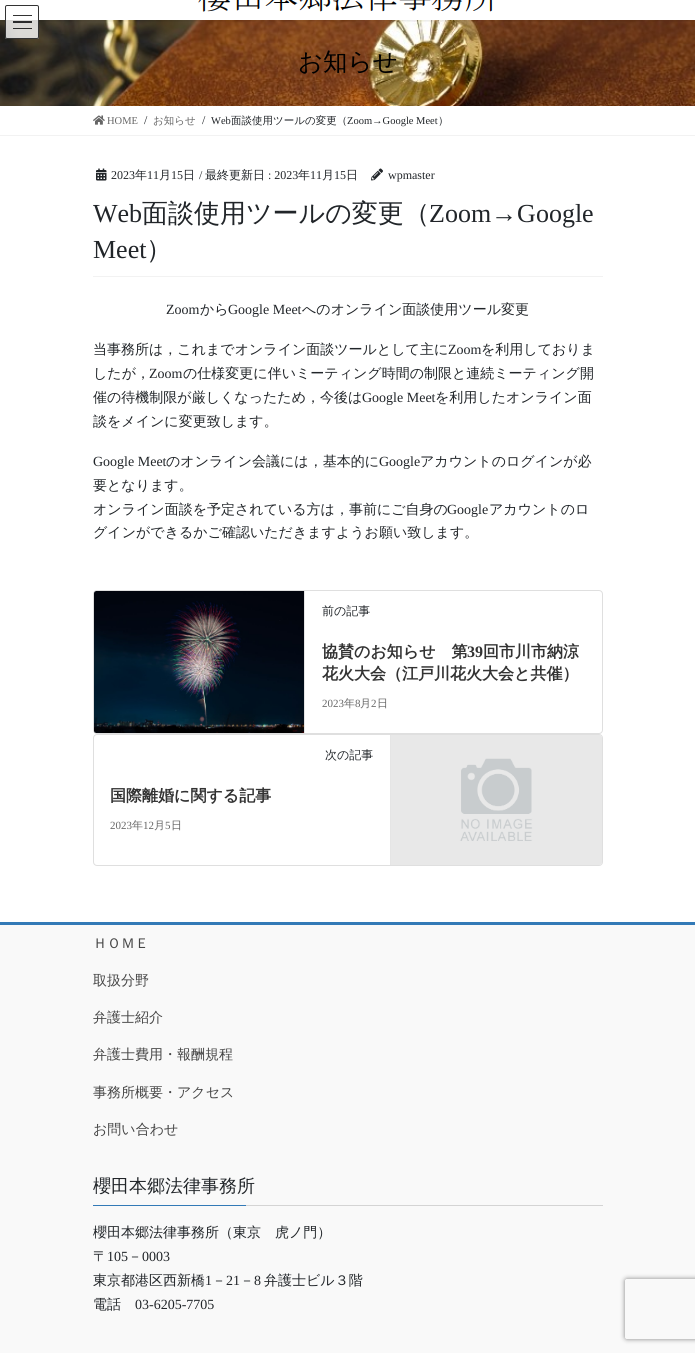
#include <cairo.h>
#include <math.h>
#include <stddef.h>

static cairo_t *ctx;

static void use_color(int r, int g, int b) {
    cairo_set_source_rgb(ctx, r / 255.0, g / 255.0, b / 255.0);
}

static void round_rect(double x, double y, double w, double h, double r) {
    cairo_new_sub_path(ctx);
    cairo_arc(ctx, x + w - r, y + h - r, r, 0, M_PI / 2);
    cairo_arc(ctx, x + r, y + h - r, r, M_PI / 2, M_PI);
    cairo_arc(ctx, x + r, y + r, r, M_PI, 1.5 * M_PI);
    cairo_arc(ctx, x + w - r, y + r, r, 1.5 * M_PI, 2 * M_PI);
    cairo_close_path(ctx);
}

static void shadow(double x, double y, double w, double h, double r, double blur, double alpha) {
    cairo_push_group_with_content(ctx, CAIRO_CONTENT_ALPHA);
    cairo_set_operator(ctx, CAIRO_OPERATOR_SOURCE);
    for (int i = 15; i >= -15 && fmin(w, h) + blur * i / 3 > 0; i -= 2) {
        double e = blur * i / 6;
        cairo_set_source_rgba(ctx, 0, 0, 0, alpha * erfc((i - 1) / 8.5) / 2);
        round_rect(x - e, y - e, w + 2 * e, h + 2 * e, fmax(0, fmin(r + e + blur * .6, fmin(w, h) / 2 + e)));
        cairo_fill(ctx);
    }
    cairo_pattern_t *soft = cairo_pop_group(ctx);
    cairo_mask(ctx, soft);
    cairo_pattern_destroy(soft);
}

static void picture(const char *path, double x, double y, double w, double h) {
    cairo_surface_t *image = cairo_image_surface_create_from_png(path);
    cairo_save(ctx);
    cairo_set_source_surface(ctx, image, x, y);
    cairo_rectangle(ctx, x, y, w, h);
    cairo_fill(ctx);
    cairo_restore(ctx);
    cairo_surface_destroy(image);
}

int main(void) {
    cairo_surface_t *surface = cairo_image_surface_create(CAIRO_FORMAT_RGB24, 695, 1353);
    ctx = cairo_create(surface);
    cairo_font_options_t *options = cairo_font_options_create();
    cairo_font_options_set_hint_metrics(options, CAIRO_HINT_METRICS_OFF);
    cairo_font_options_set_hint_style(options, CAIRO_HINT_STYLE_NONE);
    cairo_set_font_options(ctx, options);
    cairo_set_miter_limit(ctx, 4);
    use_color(255, 255, 255);
    cairo_paint(ctx);
    picture("img2.png", 0, 20, 695, 86);
    cairo_save(ctx);
    cairo_rectangle(ctx, 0, 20, 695, 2);
    cairo_clip(ctx);
    use_color(0, 0, 0);
    shadow(0, -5, 695, 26, 0, 1.5, 0.1);
    cairo_restore(ctx);
    picture("img1.png", 198, 0, 295, 12);
    cairo_set_source_rgba(ctx, 1, 1, 1, 0.8);
    round_rect(5, 5, 34, 34, 2);
    cairo_fill(ctx);
    use_color(51, 51, 51);
    cairo_rectangle(ctx, 13, 15, 19, 1);
    cairo_fill(ctx);
    use_color(43, 43, 43);
    cairo_rectangle(ctx, 13, 21, 19, 2);
    cairo_fill(ctx);
    use_color(44, 44, 43);
    cairo_rectangle(ctx, 13, 28, 19, 1);
    cairo_fill(ctx);
    round_rect(5.5, 5.5, 33, 33, 1.5);
    use_color(51, 51, 51);
    cairo_set_line_width(ctx, 1);
    cairo_stroke(ctx);
    cairo_select_font_face(ctx, "WenQuanYi Zen Hei Medium", CAIRO_FONT_SLANT_NORMAL, CAIRO_FONT_WEIGHT_NORMAL);
    cairo_set_font_size(ctx, 24.5);
    use_color(0, 0, 0);
    cairo_move_to(ctx, 298, 70);
    cairo_show_text(ctx, "お知らせ");
    use_color(242, 242, 242);
    cairo_rectangle(ctx, 0, 135, 695, 1);
    cairo_fill(ctx);
    picture("img3.png", 93, 115, 12, 10);
    cairo_select_font_face(ctx, "Liberation Serif", CAIRO_FONT_SLANT_NORMAL, CAIRO_FONT_WEIGHT_NORMAL);
    cairo_set_font_size(ctx, 10.5);
    use_color(102, 102, 102);
    cairo_move_to(ctx, 107, 124);
    cairo_show_text(ctx, "HOME");
    cairo_set_font_size(ctx, 12);
    use_color(33, 37, 41);
    cairo_move_to(ctx, 144, 124);
    cairo_show_text(ctx, "/");
    cairo_select_font_face(ctx, "WenQuanYi Zen Hei Medium", CAIRO_FONT_SLANT_NORMAL, CAIRO_FONT_WEIGHT_NORMAL);
    cairo_set_font_size(ctx, 10.5);
    use_color(102, 102, 102);
    cairo_move_to(ctx, 153, 124);
    cairo_show_text(ctx, "お知らせ");
    cairo_select_font_face(ctx, "Liberation Serif", CAIRO_FONT_SLANT_NORMAL, CAIRO_FONT_WEIGHT_NORMAL);
    cairo_set_font_size(ctx, 12);
    use_color(33, 37, 41);
    cairo_move_to(ctx, 202, 124);
    cairo_show_text(ctx, "/");
    cairo_set_font_size(ctx, 10.5);
    cairo_move_to(ctx, 211, 124);
    cairo_show_text(ctx, "Web");
    cairo_select_font_face(ctx, "WenQuanYi Zen Hei Medium", CAIRO_FONT_SLANT_NORMAL, CAIRO_FONT_WEIGHT_NORMAL);
    cairo_move_to(ctx, 231, 124);
    cairo_show_text(ctx, "面談使用ツールの変更（");
    cairo_select_font_face(ctx, "Liberation Serif", CAIRO_FONT_SLANT_NORMAL, CAIRO_FONT_WEIGHT_NORMAL);
    cairo_move_to(ctx, 347, 124);
    cairo_show_text(ctx, "Zoom→Google Meet");
    cairo_select_font_face(ctx, "WenQuanYi Zen Hei Medium", CAIRO_FONT_SLANT_NORMAL, CAIRO_FONT_WEIGHT_NORMAL);
    cairo_move_to(ctx, 438, 124);
    cairo_show_text(ctx, "）");
    use_color(242, 242, 242);
    cairo_rectangle(ctx, 93, 276, 510, 1);
    cairo_fill(ctx);
    picture("img4.png", 96, 168, 11, 13);
    cairo_select_font_face(ctx, "Liberation Serif", CAIRO_FONT_SLANT_NORMAL, CAIRO_FONT_WEIGHT_NORMAL);
    cairo_set_font_size(ctx, 12);
    use_color(33, 37, 41);
    cairo_move_to(ctx, 111, 179);
    cairo_show_text(ctx, "2023");
    cairo_select_font_face(ctx, "WenQuanYi Zen Hei Medium", CAIRO_FONT_SLANT_NORMAL, CAIRO_FONT_WEIGHT_NORMAL);
    cairo_move_to(ctx, 135, 179);
    cairo_show_text(ctx, "年");
    cairo_select_font_face(ctx, "Liberation Serif", CAIRO_FONT_SLANT_NORMAL, CAIRO_FONT_WEIGHT_NORMAL);
    cairo_move_to(ctx, 147, 179);
    cairo_show_text(ctx, "11");
    cairo_select_font_face(ctx, "WenQuanYi Zen Hei Medium", CAIRO_FONT_SLANT_NORMAL, CAIRO_FONT_WEIGHT_NORMAL);
    cairo_move_to(ctx, 159, 179);
    cairo_show_text(ctx, "月");
    cairo_select_font_face(ctx, "Liberation Serif", CAIRO_FONT_SLANT_NORMAL, CAIRO_FONT_WEIGHT_NORMAL);
    cairo_move_to(ctx, 171, 179);
    cairo_show_text(ctx, "15");
    cairo_select_font_face(ctx, "WenQuanYi Zen Hei Medium", CAIRO_FONT_SLANT_NORMAL, CAIRO_FONT_WEIGHT_NORMAL);
    cairo_move_to(ctx, 183, 179);
    cairo_show_text(ctx, "日");
    cairo_select_font_face(ctx, "Liberation Serif", CAIRO_FONT_SLANT_NORMAL, CAIRO_FONT_WEIGHT_NORMAL);
    cairo_move_to(ctx, 199, 179);
    cairo_show_text(ctx, "/");
    cairo_select_font_face(ctx, "WenQuanYi Zen Hei Medium", CAIRO_FONT_SLANT_NORMAL, CAIRO_FONT_WEIGHT_NORMAL);
    cairo_move_to(ctx, 205, 179);
    cairo_show_text(ctx, "最終更新日");
    cairo_select_font_face(ctx, "Liberation Serif", CAIRO_FONT_SLANT_NORMAL, CAIRO_FONT_WEIGHT_NORMAL);
    cairo_move_to(ctx, 268, 179);
    cairo_show_text(ctx, ": 2023");
    cairo_select_font_face(ctx, "WenQuanYi Zen Hei Medium", CAIRO_FONT_SLANT_NORMAL, CAIRO_FONT_WEIGHT_NORMAL);
    cairo_move_to(ctx, 298, 179);
    cairo_show_text(ctx, "年");
    cairo_select_font_face(ctx, "Liberation Serif", CAIRO_FONT_SLANT_NORMAL, CAIRO_FONT_WEIGHT_NORMAL);
    cairo_move_to(ctx, 310, 179);
    cairo_show_text(ctx, "11");
    cairo_select_font_face(ctx, "WenQuanYi Zen Hei Medium", CAIRO_FONT_SLANT_NORMAL, CAIRO_FONT_WEIGHT_NORMAL);
    cairo_move_to(ctx, 322, 179);
    cairo_show_text(ctx, "月");
    cairo_select_font_face(ctx, "Liberation Serif", CAIRO_FONT_SLANT_NORMAL, CAIRO_FONT_WEIGHT_NORMAL);
    cairo_move_to(ctx, 334, 179);
    cairo_show_text(ctx, "15");
    cairo_select_font_face(ctx, "WenQuanYi Zen Hei Medium", CAIRO_FONT_SLANT_NORMAL, CAIRO_FONT_WEIGHT_NORMAL);
    cairo_move_to(ctx, 346, 179);
    cairo_show_text(ctx, "日");
    picture("img5.png", 371, 168, 12, 13);
    cairo_select_font_face(ctx, "Liberation Serif", CAIRO_FONT_SLANT_NORMAL, CAIRO_FONT_WEIGHT_NORMAL);
    cairo_move_to(ctx, 388, 179);
    cairo_show_text(ctx, "wpmaster");
    cairo_set_font_size(ctx, 26);
    cairo_move_to(ctx, 93, 222);
    cairo_show_text(ctx, "Web");
    cairo_select_font_face(ctx, "WenQuanYi Zen Hei Medium", CAIRO_FONT_SLANT_NORMAL, CAIRO_FONT_WEIGHT_NORMAL);
    cairo_move_to(ctx, 142, 222);
    cairo_show_text(ctx, "面談使用ツールの変更（");
    cairo_select_font_face(ctx, "Liberation Serif", CAIRO_FONT_SLANT_NORMAL, CAIRO_FONT_WEIGHT_NORMAL);
    cairo_move_to(ctx, 429, 222);
    cairo_show_text(ctx, "Zoom→Google");
    cairo_move_to(ctx, 93, 258);
    cairo_show_text(ctx, "Meet");
    cairo_select_font_face(ctx, "WenQuanYi Zen Hei Medium", CAIRO_FONT_SLANT_NORMAL, CAIRO_FONT_WEIGHT_NORMAL);
    cairo_move_to(ctx, 146, 258);
    cairo_show_text(ctx, "）");
    cairo_select_font_face(ctx, "Liberation Serif", CAIRO_FONT_SLANT_NORMAL, CAIRO_FONT_WEIGHT_NORMAL);
    cairo_set_font_size(ctx, 14);
    cairo_move_to(ctx, 166, 314);
    cairo_show_text(ctx, "Zoom");
    cairo_select_font_face(ctx, "WenQuanYi Zen Hei Medium", CAIRO_FONT_SLANT_NORMAL, CAIRO_FONT_WEIGHT_NORMAL);
    cairo_move_to(ctx, 200, 314);
    cairo_show_text(ctx, "から");
    cairo_select_font_face(ctx, "Liberation Serif", CAIRO_FONT_SLANT_NORMAL, CAIRO_FONT_WEIGHT_NORMAL);
    cairo_move_to(ctx, 228, 314);
    cairo_show_text(ctx, "Google Meet");
    cairo_select_font_face(ctx, "WenQuanYi Zen Hei Medium", CAIRO_FONT_SLANT_NORMAL, CAIRO_FONT_WEIGHT_NORMAL);
    cairo_move_to(ctx, 302, 314);
    cairo_show_text(ctx, "へのオンライン面談使用ツール変更");
    cairo_move_to(ctx, 93, 354);
    cairo_show_text(ctx, "当事務所は，これまでオンライン面談ツールとして主に");
    cairo_select_font_face(ctx, "Liberation Serif", CAIRO_FONT_SLANT_NORMAL, CAIRO_FONT_WEIGHT_NORMAL);
    cairo_move_to(ctx, 448, 354);
    cairo_show_text(ctx, "Zoom");
    cairo_select_font_face(ctx, "WenQuanYi Zen Hei Medium", CAIRO_FONT_SLANT_NORMAL, CAIRO_FONT_WEIGHT_NORMAL);
    cairo_move_to(ctx, 481, 354);
    cairo_show_text(ctx, "を利用しておりま");
    cairo_move_to(ctx, 93, 378);
    cairo_show_text(ctx, "したが，");
    cairo_select_font_face(ctx, "Liberation Serif", CAIRO_FONT_SLANT_NORMAL, CAIRO_FONT_WEIGHT_NORMAL);
    cairo_move_to(ctx, 149, 378);
    cairo_show_text(ctx, "Zoom");
    cairo_select_font_face(ctx, "WenQuanYi Zen Hei Medium", CAIRO_FONT_SLANT_NORMAL, CAIRO_FONT_WEIGHT_NORMAL);
    cairo_move_to(ctx, 183, 378);
    cairo_show_text(ctx, "の仕様変更に伴いミーティング時間の制限と連続ミーティング開");
    cairo_move_to(ctx, 93, 402);
    cairo_show_text(ctx, "催の待機制限が厳しくなったため，今後は");
    cairo_select_font_face(ctx, "Liberation Serif", CAIRO_FONT_SLANT_NORMAL, CAIRO_FONT_WEIGHT_NORMAL);
    cairo_move_to(ctx, 362, 402);
    cairo_show_text(ctx, "Google Meet");
    cairo_select_font_face(ctx, "WenQuanYi Zen Hei Medium", CAIRO_FONT_SLANT_NORMAL, CAIRO_FONT_WEIGHT_NORMAL);
    cairo_move_to(ctx, 435, 402);
    cairo_show_text(ctx, "を利用したオンライン面");
    cairo_move_to(ctx, 93, 426);
    cairo_show_text(ctx, "談をメインに変更致します。");
    cairo_select_font_face(ctx, "Liberation Serif", CAIRO_FONT_SLANT_NORMAL, CAIRO_FONT_WEIGHT_NORMAL);
    cairo_move_to(ctx, 93, 466);
    cairo_show_text(ctx, "Google Meet");
    cairo_select_font_face(ctx, "WenQuanYi Zen Hei Medium", CAIRO_FONT_SLANT_NORMAL, CAIRO_FONT_WEIGHT_NORMAL);
    cairo_move_to(ctx, 166, 466);
    cairo_show_text(ctx, "のオンライン会議には，基本的に");
    cairo_select_font_face(ctx, "Liberation Serif", CAIRO_FONT_SLANT_NORMAL, CAIRO_FONT_WEIGHT_NORMAL);
    cairo_move_to(ctx, 379, 466);
    cairo_show_text(ctx, "Google");
    cairo_select_font_face(ctx, "WenQuanYi Zen Hei Medium", CAIRO_FONT_SLANT_NORMAL, CAIRO_FONT_WEIGHT_NORMAL);
    cairo_move_to(ctx, 420, 466);
    cairo_show_text(ctx, "アカウントのログインが必");
    cairo_move_to(ctx, 93, 490);
    cairo_show_text(ctx, "要となります。");
    cairo_move_to(ctx, 93, 514);
    cairo_show_text(ctx, "オンライン面談を予定されている方は，事前にご自身の");
    cairo_select_font_face(ctx, "Liberation Serif", CAIRO_FONT_SLANT_NORMAL, CAIRO_FONT_WEIGHT_NORMAL);
    cairo_move_to(ctx, 447, 514);
    cairo_show_text(ctx, "Google");
    cairo_select_font_face(ctx, "WenQuanYi Zen Hei Medium", CAIRO_FONT_SLANT_NORMAL, CAIRO_FONT_WEIGHT_NORMAL);
    cairo_move_to(ctx, 489, 514);
    cairo_show_text(ctx, "アカウントのロ");
    cairo_move_to(ctx, 93, 537);
    cairo_show_text(ctx, "グインができるかご確認いただきますようお願い致します。");
    round_rect(93.5, 590.5, 509, 143, 3.5);
    use_color(223, 223, 223);
    cairo_stroke(ctx);
    picture("img6.png", 94, 591, 210, 142);
    use_color(229, 229, 229);
    cairo_rectangle(ctx, 304, 591, 1, 142);
    cairo_fill(ctx);
    cairo_set_font_size(ctx, 12);
    use_color(33, 37, 41);
    cairo_move_to(ctx, 322, 615);
    cairo_show_text(ctx, "前の記事");
    cairo_select_font_face(ctx, "WenQuanYi Zen Hei", CAIRO_FONT_SLANT_NORMAL, CAIRO_FONT_WEIGHT_BOLD);
    cairo_set_font_size(ctx, 16);
    use_color(51, 51, 51);
    cairo_move_to(ctx, 322, 657);
    cairo_show_text(ctx, "協賛のお知らせ　第");
    cairo_select_font_face(ctx, "Liberation Serif", CAIRO_FONT_SLANT_NORMAL, CAIRO_FONT_WEIGHT_BOLD);
    cairo_move_to(ctx, 467, 657);
    cairo_show_text(ctx, "39");
    cairo_select_font_face(ctx, "WenQuanYi Zen Hei", CAIRO_FONT_SLANT_NORMAL, CAIRO_FONT_WEIGHT_BOLD);
    cairo_move_to(ctx, 483, 657);
    cairo_show_text(ctx, "回市川市納涼");
    cairo_move_to(ctx, 322, 679);
    cairo_show_text(ctx, "花火大会（江戸川花火大会と共催）");
    cairo_select_font_face(ctx, "Liberation Serif", CAIRO_FONT_SLANT_NORMAL, CAIRO_FONT_WEIGHT_NORMAL);
    cairo_set_font_size(ctx, 11);
    use_color(102, 102, 102);
    cairo_move_to(ctx, 322, 707);
    cairo_show_text(ctx, "2023");
    cairo_select_font_face(ctx, "WenQuanYi Zen Hei Medium", CAIRO_FONT_SLANT_NORMAL, CAIRO_FONT_WEIGHT_NORMAL);
    cairo_move_to(ctx, 344, 707);
    cairo_show_text(ctx, "年");
    cairo_select_font_face(ctx, "Liberation Serif", CAIRO_FONT_SLANT_NORMAL, CAIRO_FONT_WEIGHT_NORMAL);
    cairo_move_to(ctx, 355, 707);
    cairo_show_text(ctx, "8");
    cairo_select_font_face(ctx, "WenQuanYi Zen Hei Medium", CAIRO_FONT_SLANT_NORMAL, CAIRO_FONT_WEIGHT_NORMAL);
    cairo_move_to(ctx, 360, 707);
    cairo_show_text(ctx, "月");
    cairo_select_font_face(ctx, "Liberation Serif", CAIRO_FONT_SLANT_NORMAL, CAIRO_FONT_WEIGHT_NORMAL);
    cairo_move_to(ctx, 371, 707);
    cairo_show_text(ctx, "2");
    cairo_select_font_face(ctx, "WenQuanYi Zen Hei Medium", CAIRO_FONT_SLANT_NORMAL, CAIRO_FONT_WEIGHT_NORMAL);
    cairo_move_to(ctx, 377, 707);
    cairo_show_text(ctx, "日");
    round_rect(93.5, 734.5, 509, 131, 3.5);
    use_color(223, 223, 223);
    cairo_stroke(ctx);
    cairo_set_font_size(ctx, 12);
    use_color(33, 37, 41);
    cairo_move_to(ctx, 325, 759);
    cairo_show_text(ctx, "次の記事");
    cairo_select_font_face(ctx, "WenQuanYi Zen Hei", CAIRO_FONT_SLANT_NORMAL, CAIRO_FONT_WEIGHT_BOLD);
    cairo_set_font_size(ctx, 16);
    use_color(51, 51, 51);
    cairo_move_to(ctx, 110, 801);
    cairo_show_text(ctx, "国際離婚に関する記事");
    cairo_select_font_face(ctx, "Liberation Serif", CAIRO_FONT_SLANT_NORMAL, CAIRO_FONT_WEIGHT_NORMAL);
    cairo_set_font_size(ctx, 11);
    use_color(102, 102, 102);
    cairo_move_to(ctx, 110, 829);
    cairo_show_text(ctx, "2023");
    cairo_select_font_face(ctx, "WenQuanYi Zen Hei Medium", CAIRO_FONT_SLANT_NORMAL, CAIRO_FONT_WEIGHT_NORMAL);
    cairo_move_to(ctx, 132, 829);
    cairo_show_text(ctx, "年");
    cairo_select_font_face(ctx, "Liberation Serif", CAIRO_FONT_SLANT_NORMAL, CAIRO_FONT_WEIGHT_NORMAL);
    cairo_move_to(ctx, 143, 829);
    cairo_show_text(ctx, "12");
    cairo_select_font_face(ctx, "WenQuanYi Zen Hei Medium", CAIRO_FONT_SLANT_NORMAL, CAIRO_FONT_WEIGHT_NORMAL);
    cairo_move_to(ctx, 154, 829);
    cairo_show_text(ctx, "月");
    cairo_select_font_face(ctx, "Liberation Serif", CAIRO_FONT_SLANT_NORMAL, CAIRO_FONT_WEIGHT_NORMAL);
    cairo_move_to(ctx, 165, 829);
    cairo_show_text(ctx, "5");
    cairo_select_font_face(ctx, "WenQuanYi Zen Hei Medium", CAIRO_FONT_SLANT_NORMAL, CAIRO_FONT_WEIGHT_NORMAL);
    cairo_move_to(ctx, 171, 829);
    cairo_show_text(ctx, "日");
    picture("img7.png", 391, 735, 211, 130);
    use_color(229, 229, 229);
    cairo_rectangle(ctx, 390, 735, 1, 130);
    cairo_fill(ctx);
    use_color(249, 249, 249);
    cairo_rectangle(ctx, 0, 925, 695, 428);
    cairo_fill(ctx);
    use_color(51, 122, 183);
    cairo_rectangle(ctx, 0, 922, 695, 3);
    cairo_fill(ctx);
    cairo_set_font_size(ctx, 14);
    use_color(70, 70, 70);
    cairo_move_to(ctx, 93, 948);
    cairo_show_text(ctx, "ＨＯＭＥ");
    cairo_move_to(ctx, 93, 985);
    cairo_show_text(ctx, "取扱分野");
    cairo_move_to(ctx, 93, 1022);
    cairo_show_text(ctx, "弁護士紹介");
    cairo_move_to(ctx, 93, 1059);
    cairo_show_text(ctx, "弁護士費用・報酬規程");
    cairo_move_to(ctx, 93, 1097);
    cairo_show_text(ctx, "事務所概要・アクセス");
    cairo_move_to(ctx, 93, 1134);
    cairo_show_text(ctx, "お問い合わせ");
    use_color(212, 212, 212);
    cairo_rectangle(ctx, 246, 1205, 357, 1);
    cairo_fill(ctx);
    cairo_set_font_size(ctx, 18);
    use_color(33, 37, 41);
    cairo_move_to(ctx, 93, 1192);
    cairo_show_text(ctx, "櫻田本郷法律事務所");
    use_color(51, 122, 183);
    cairo_rectangle(ctx, 93, 1205, 153, 1);
    cairo_fill(ctx);
    cairo_set_font_size(ctx, 14);
    use_color(33, 37, 41);
    cairo_move_to(ctx, 93, 1237);
    cairo_show_text(ctx, "櫻田本郷法律事務所（東京　虎ノ門）");
    cairo_move_to(ctx, 93, 1261);
    cairo_show_text(ctx, "〒");
    cairo_select_font_face(ctx, "Liberation Serif", CAIRO_FONT_SLANT_NORMAL, CAIRO_FONT_WEIGHT_NORMAL);
    cairo_move_to(ctx, 107, 1261);
    cairo_show_text(ctx, "105");
    cairo_select_font_face(ctx, "WenQuanYi Zen Hei Medium", CAIRO_FONT_SLANT_NORMAL, CAIRO_FONT_WEIGHT_NORMAL);
    cairo_move_to(ctx, 128, 1261);
    cairo_show_text(ctx, "－");
    cairo_select_font_face(ctx, "Liberation Serif", CAIRO_FONT_SLANT_NORMAL, CAIRO_FONT_WEIGHT_NORMAL);
    cairo_move_to(ctx, 142, 1261);
    cairo_show_text(ctx, "0003");
    cairo_select_font_face(ctx, "WenQuanYi Zen Hei Medium", CAIRO_FONT_SLANT_NORMAL, CAIRO_FONT_WEIGHT_NORMAL);
    cairo_move_to(ctx, 93, 1285);
    cairo_show_text(ctx, "東京都港区西新橋");
    cairo_select_font_face(ctx, "Liberation Serif", CAIRO_FONT_SLANT_NORMAL, CAIRO_FONT_WEIGHT_NORMAL);
    cairo_move_to(ctx, 205, 1285);
    cairo_show_text(ctx, "1");
    cairo_select_font_face(ctx, "WenQuanYi Zen Hei Medium", CAIRO_FONT_SLANT_NORMAL, CAIRO_FONT_WEIGHT_NORMAL);
    cairo_move_to(ctx, 212, 1285);
    cairo_show_text(ctx, "－");
    cairo_select_font_face(ctx, "Liberation Serif", CAIRO_FONT_SLANT_NORMAL, CAIRO_FONT_WEIGHT_NORMAL);
    cairo_move_to(ctx, 226, 1285);
    cairo_show_text(ctx, "21");
    cairo_select_font_face(ctx, "WenQuanYi Zen Hei Medium", CAIRO_FONT_SLANT_NORMAL, CAIRO_FONT_WEIGHT_NORMAL);
    cairo_move_to(ctx, 240, 1285);
    cairo_show_text(ctx, "－");
    cairo_select_font_face(ctx, "Liberation Serif", CAIRO_FONT_SLANT_NORMAL, CAIRO_FONT_WEIGHT_NORMAL);
    cairo_move_to(ctx, 254, 1285);
    cairo_show_text(ctx, "8");
    cairo_select_font_face(ctx, "WenQuanYi Zen Hei Medium", CAIRO_FONT_SLANT_NORMAL, CAIRO_FONT_WEIGHT_NORMAL);
    cairo_move_to(ctx, 264, 1285);
    cairo_show_text(ctx, "弁護士ビル３階");
    cairo_move_to(ctx, 93, 1309);
    cairo_show_text(ctx, "電話");
    cairo_select_font_face(ctx, "Liberation Serif", CAIRO_FONT_SLANT_NORMAL, CAIRO_FONT_WEIGHT_NORMAL);
    cairo_move_to(ctx, 135, 1309);
    cairo_show_text(ctx, "03-6205-7705");
    cairo_save(ctx);
    cairo_set_fill_rule(ctx, CAIRO_FILL_RULE_EVEN_ODD);
    cairo_new_path(ctx);
    cairo_move_to(ctx, 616, 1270);
    cairo_line_to(ctx, 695, 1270);
    cairo_line_to(ctx, 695, 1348);
    cairo_line_to(ctx, 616, 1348);
    cairo_close_path(ctx);
    cairo_move_to(ctx, 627, 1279);
    cairo_line_to(ctx, 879, 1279);
    cairo_curve_to(ctx, 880, 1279, 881, 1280, 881, 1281);
    cairo_line_to(ctx, 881, 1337);
    cairo_curve_to(ctx, 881, 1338, 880, 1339, 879, 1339);
    cairo_line_to(ctx, 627, 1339);
    cairo_curve_to(ctx, 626, 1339, 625, 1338, 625, 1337);
    cairo_line_to(ctx, 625, 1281);
    cairo_curve_to(ctx, 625, 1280, 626, 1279, 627, 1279);
    cairo_close_path(ctx);
    cairo_clip(ctx);
    use_color(128, 128, 128);
    shadow(625, 1279, 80, 60, 2, 2.5, 1);
    cairo_restore(ctx);
    cairo_surface_write_to_png(surface, "result.png");
    cairo_font_options_destroy(options);
    cairo_destroy(ctx);
    cairo_surface_destroy(surface);
    return 0;
}
